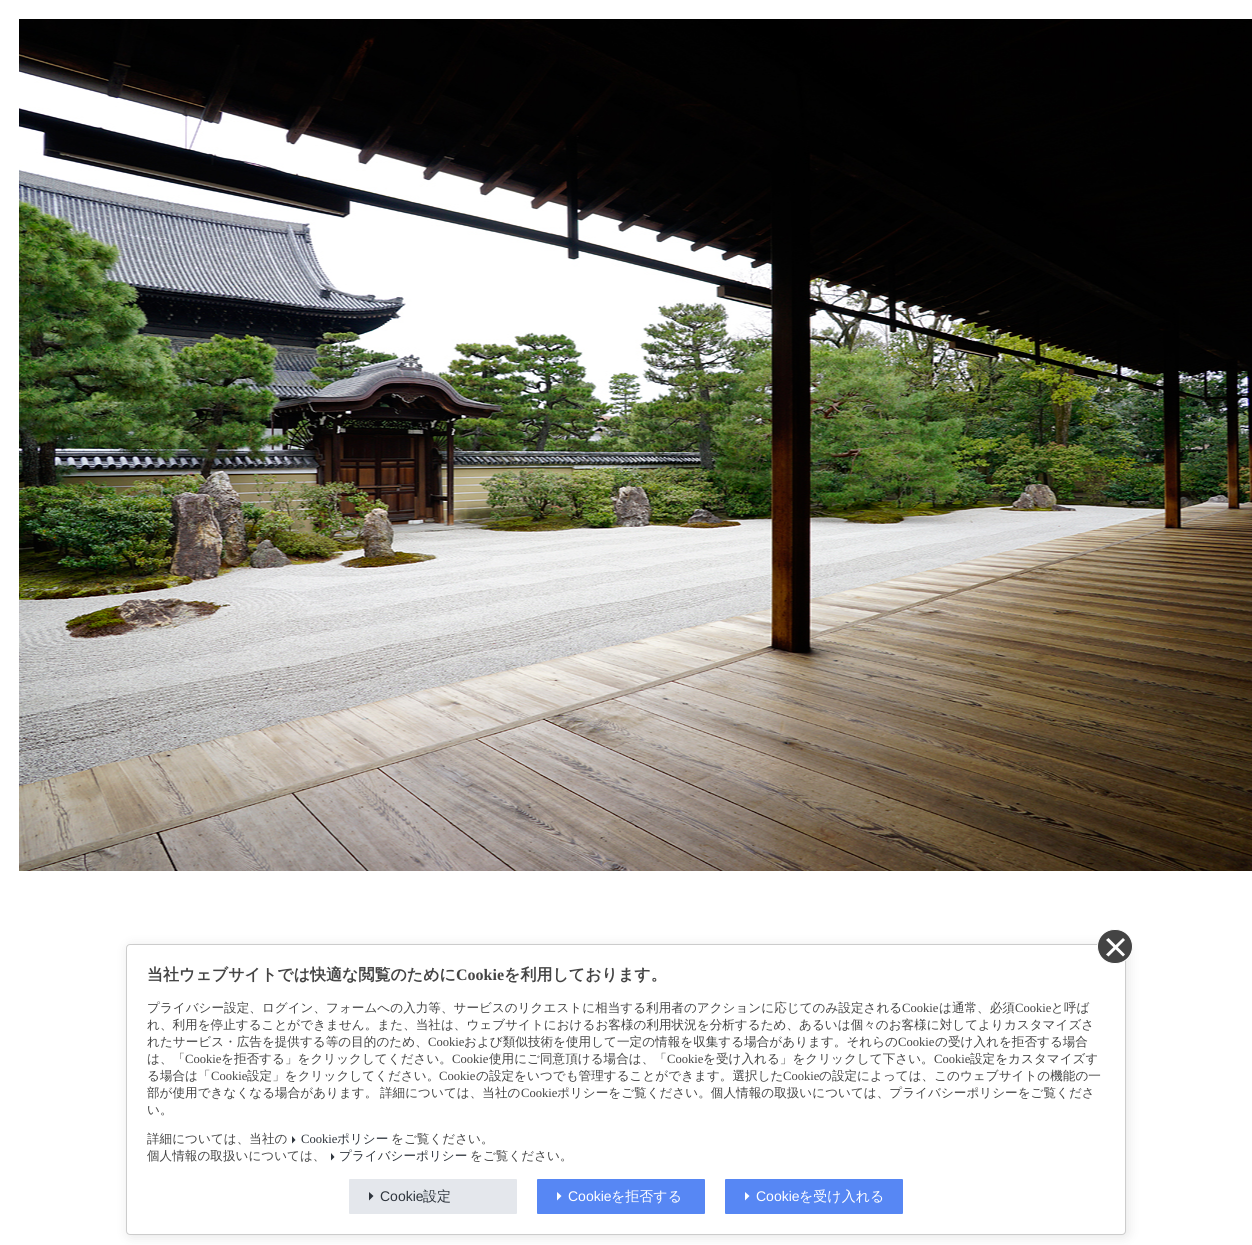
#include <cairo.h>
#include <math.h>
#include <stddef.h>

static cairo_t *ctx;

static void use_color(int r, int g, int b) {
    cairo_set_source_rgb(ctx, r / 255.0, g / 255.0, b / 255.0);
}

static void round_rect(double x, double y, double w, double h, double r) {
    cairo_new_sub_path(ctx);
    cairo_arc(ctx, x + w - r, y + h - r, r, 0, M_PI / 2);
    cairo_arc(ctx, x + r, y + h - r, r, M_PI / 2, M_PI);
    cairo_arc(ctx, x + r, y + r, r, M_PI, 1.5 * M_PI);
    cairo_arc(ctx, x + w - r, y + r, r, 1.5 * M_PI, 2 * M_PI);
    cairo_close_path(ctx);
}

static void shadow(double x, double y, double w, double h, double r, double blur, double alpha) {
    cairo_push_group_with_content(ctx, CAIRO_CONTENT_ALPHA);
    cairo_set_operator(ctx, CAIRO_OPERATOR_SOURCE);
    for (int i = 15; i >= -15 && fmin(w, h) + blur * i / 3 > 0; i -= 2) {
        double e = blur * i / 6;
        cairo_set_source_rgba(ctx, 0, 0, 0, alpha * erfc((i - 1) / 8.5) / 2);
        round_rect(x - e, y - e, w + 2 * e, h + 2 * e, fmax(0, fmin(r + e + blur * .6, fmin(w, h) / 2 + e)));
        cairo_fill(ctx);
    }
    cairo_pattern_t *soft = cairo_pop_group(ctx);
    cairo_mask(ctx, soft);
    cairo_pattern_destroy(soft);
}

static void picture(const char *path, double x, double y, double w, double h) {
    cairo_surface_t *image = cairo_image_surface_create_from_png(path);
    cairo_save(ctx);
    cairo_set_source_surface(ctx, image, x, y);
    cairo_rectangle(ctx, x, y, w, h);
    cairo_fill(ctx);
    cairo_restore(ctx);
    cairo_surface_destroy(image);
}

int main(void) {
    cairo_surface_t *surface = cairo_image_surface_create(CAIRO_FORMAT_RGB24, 1252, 1245);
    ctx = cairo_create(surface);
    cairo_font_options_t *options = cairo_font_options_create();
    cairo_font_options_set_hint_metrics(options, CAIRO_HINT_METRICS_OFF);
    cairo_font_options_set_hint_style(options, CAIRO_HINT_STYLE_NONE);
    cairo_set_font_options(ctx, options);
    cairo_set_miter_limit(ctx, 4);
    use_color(255, 255, 255);
    cairo_paint(ctx);
    picture("img1.png", 19, 19, 1233, 852);
    use_color(0, 0, 0);
    shadow(128, 946, 1000, 291, 4, 6, 0.1);
    use_color(255, 255, 255);
    round_rect(126.5, 944.5, 999, 290, 3.5);
    cairo_fill_preserve(ctx);
    use_color(204, 204, 204);
    cairo_set_line_width(ctx, 1);
    cairo_stroke(ctx);
    use_color(68, 68, 68);
    round_rect(1097.5, 929.5, 35, 34, 17);
    cairo_fill_preserve(ctx);
    use_color(255, 255, 255);
    cairo_stroke(ctx);
    cairo_new_path(ctx);
    cairo_move_to(ctx, 1106, 954.5);
    cairo_line_to(ctx, 1123, 938);
    cairo_line_to(ctx, 1125, 940);
    cairo_line_to(ctx, 1108.5, 956.5);
    cairo_close_path(ctx);
    cairo_fill(ctx);
    cairo_new_path(ctx);
    cairo_move_to(ctx, 1108.5, 938);
    cairo_line_to(ctx, 1125, 954.5);
    cairo_line_to(ctx, 1123, 956.5);
    cairo_line_to(ctx, 1106, 940);
    cairo_close_path(ctx);
    cairo_fill(ctx);
    cairo_select_font_face(ctx, "WenQuanYi Zen Hei", CAIRO_FONT_SLANT_NORMAL, CAIRO_FONT_WEIGHT_BOLD);
    cairo_set_font_size(ctx, 16);
    use_color(68, 68, 68);
    cairo_move_to(ctx, 147, 980);
    cairo_show_text(ctx, "当社ウェブサイトでは快適な閲覧のために");
    cairo_select_font_face(ctx, "Liberation Serif", CAIRO_FONT_SLANT_NORMAL, CAIRO_FONT_WEIGHT_BOLD);
    cairo_move_to(ctx, 456, 980);
    cairo_show_text(ctx, "Cookie");
    cairo_select_font_face(ctx, "WenQuanYi Zen Hei", CAIRO_FONT_SLANT_NORMAL, CAIRO_FONT_WEIGHT_BOLD);
    cairo_move_to(ctx, 504, 980);
    cairo_show_text(ctx, "を利用しております。");
    cairo_select_font_face(ctx, "WenQuanYi Zen Hei Medium", CAIRO_FONT_SLANT_NORMAL, CAIRO_FONT_WEIGHT_NORMAL);
    cairo_set_font_size(ctx, 12.6);
    cairo_move_to(ctx, 147, 1012);
    cairo_show_text(ctx, "プライバシー設定、ログイン、フォームへの入力等、サービスのリクエストに相当する利用者のアクションに応じてのみ設定される");
    cairo_select_font_face(ctx, "Liberation Serif", CAIRO_FONT_SLANT_NORMAL, CAIRO_FONT_WEIGHT_NORMAL);
    cairo_move_to(ctx, 902, 1012);
    cairo_show_text(ctx, "Cookie");
    cairo_select_font_face(ctx, "WenQuanYi Zen Hei Medium", CAIRO_FONT_SLANT_NORMAL, CAIRO_FONT_WEIGHT_NORMAL);
    cairo_move_to(ctx, 939, 1012);
    cairo_show_text(ctx, "は通常、必須");
    cairo_select_font_face(ctx, "Liberation Serif", CAIRO_FONT_SLANT_NORMAL, CAIRO_FONT_WEIGHT_NORMAL);
    cairo_move_to(ctx, 1015, 1012);
    cairo_show_text(ctx, "Cookie");
    cairo_select_font_face(ctx, "WenQuanYi Zen Hei Medium", CAIRO_FONT_SLANT_NORMAL, CAIRO_FONT_WEIGHT_NORMAL);
    cairo_move_to(ctx, 1051, 1012);
    cairo_show_text(ctx, "と呼ば");
    cairo_move_to(ctx, 147, 1029);
    cairo_show_text(ctx, "れ、利用を停止することができません。また、当社は、ウェブサイトにおけるお客様の利用状況を分析するため、あるいは個々のお客様に対してよりカスタマイズさ");
    cairo_move_to(ctx, 147, 1046);
    cairo_show_text(ctx, "れたサービス・広告を提供する等の目的のため、");
    cairo_select_font_face(ctx, "Liberation Serif", CAIRO_FONT_SLANT_NORMAL, CAIRO_FONT_WEIGHT_NORMAL);
    cairo_move_to(ctx, 428, 1046);
    cairo_show_text(ctx, "Cookie");
    cairo_select_font_face(ctx, "WenQuanYi Zen Hei Medium", CAIRO_FONT_SLANT_NORMAL, CAIRO_FONT_WEIGHT_NORMAL);
    cairo_move_to(ctx, 464, 1046);
    cairo_show_text(ctx, "および類似技術を使用して一定の情報を収集する場合があります。それらの");
    cairo_select_font_face(ctx, "Liberation Serif", CAIRO_FONT_SLANT_NORMAL, CAIRO_FONT_WEIGHT_NORMAL);
    cairo_move_to(ctx, 898, 1046);
    cairo_show_text(ctx, "Cookie");
    cairo_select_font_face(ctx, "WenQuanYi Zen Hei Medium", CAIRO_FONT_SLANT_NORMAL, CAIRO_FONT_WEIGHT_NORMAL);
    cairo_move_to(ctx, 935, 1046);
    cairo_show_text(ctx, "の受け入れを拒否する場合");
    cairo_move_to(ctx, 147, 1063);
    cairo_show_text(ctx, "は、「");
    cairo_select_font_face(ctx, "Liberation Serif", CAIRO_FONT_SLANT_NORMAL, CAIRO_FONT_WEIGHT_NORMAL);
    cairo_move_to(ctx, 185, 1063);
    cairo_show_text(ctx, "Cookie");
    cairo_select_font_face(ctx, "WenQuanYi Zen Hei Medium", CAIRO_FONT_SLANT_NORMAL, CAIRO_FONT_WEIGHT_NORMAL);
    cairo_move_to(ctx, 221, 1063);
    cairo_show_text(ctx, "を拒否する」をクリックしてください。");
    cairo_select_font_face(ctx, "Liberation Serif", CAIRO_FONT_SLANT_NORMAL, CAIRO_FONT_WEIGHT_NORMAL);
    cairo_move_to(ctx, 452, 1063);
    cairo_show_text(ctx, "Cookie");
    cairo_select_font_face(ctx, "WenQuanYi Zen Hei Medium", CAIRO_FONT_SLANT_NORMAL, CAIRO_FONT_WEIGHT_NORMAL);
    cairo_move_to(ctx, 489, 1063);
    cairo_show_text(ctx, "使用にご同意頂ける場合は、「");
    cairo_select_font_face(ctx, "Liberation Serif", CAIRO_FONT_SLANT_NORMAL, CAIRO_FONT_WEIGHT_NORMAL);
    cairo_move_to(ctx, 667, 1063);
    cairo_show_text(ctx, "Cookie");
    cairo_select_font_face(ctx, "WenQuanYi Zen Hei Medium", CAIRO_FONT_SLANT_NORMAL, CAIRO_FONT_WEIGHT_NORMAL);
    cairo_move_to(ctx, 703, 1063);
    cairo_show_text(ctx, "を受け入れる」をクリックして下さい。");
    cairo_select_font_face(ctx, "Liberation Serif", CAIRO_FONT_SLANT_NORMAL, CAIRO_FONT_WEIGHT_NORMAL);
    cairo_move_to(ctx, 934, 1063);
    cairo_show_text(ctx, "Cookie");
    cairo_select_font_face(ctx, "WenQuanYi Zen Hei Medium", CAIRO_FONT_SLANT_NORMAL, CAIRO_FONT_WEIGHT_NORMAL);
    cairo_move_to(ctx, 970, 1063);
    cairo_show_text(ctx, "設定をカスタマイズす");
    cairo_move_to(ctx, 147, 1080);
    cairo_show_text(ctx, "る場合は「");
    cairo_select_font_face(ctx, "Liberation Serif", CAIRO_FONT_SLANT_NORMAL, CAIRO_FONT_WEIGHT_NORMAL);
    cairo_move_to(ctx, 211, 1080);
    cairo_show_text(ctx, "Cookie");
    cairo_select_font_face(ctx, "WenQuanYi Zen Hei Medium", CAIRO_FONT_SLANT_NORMAL, CAIRO_FONT_WEIGHT_NORMAL);
    cairo_move_to(ctx, 247, 1080);
    cairo_show_text(ctx, "設定」をクリックしてください。");
    cairo_select_font_face(ctx, "Liberation Serif", CAIRO_FONT_SLANT_NORMAL, CAIRO_FONT_WEIGHT_NORMAL);
    cairo_move_to(ctx, 439, 1080);
    cairo_show_text(ctx, "Cookie");
    cairo_select_font_face(ctx, "WenQuanYi Zen Hei Medium", CAIRO_FONT_SLANT_NORMAL, CAIRO_FONT_WEIGHT_NORMAL);
    cairo_move_to(ctx, 476, 1080);
    cairo_show_text(ctx, "の設定をいつでも管理することができます。選択した");
    cairo_select_font_face(ctx, "Liberation Serif", CAIRO_FONT_SLANT_NORMAL, CAIRO_FONT_WEIGHT_NORMAL);
    cairo_move_to(ctx, 783, 1080);
    cairo_show_text(ctx, "Cookie");
    cairo_select_font_face(ctx, "WenQuanYi Zen Hei Medium", CAIRO_FONT_SLANT_NORMAL, CAIRO_FONT_WEIGHT_NORMAL);
    cairo_move_to(ctx, 819, 1080);
    cairo_show_text(ctx, "の設定によっては、このウェブサイトの機能の一");
    cairo_move_to(ctx, 147, 1097);
    cairo_show_text(ctx, "部が使用できなくなる場合があります。");
    cairo_move_to(ctx, 380, 1097);
    cairo_show_text(ctx, "詳細については、当社の");
    cairo_select_font_face(ctx, "Liberation Serif", CAIRO_FONT_SLANT_NORMAL, CAIRO_FONT_WEIGHT_NORMAL);
    cairo_move_to(ctx, 521, 1097);
    cairo_show_text(ctx, "Cookie");
    cairo_select_font_face(ctx, "WenQuanYi Zen Hei Medium", CAIRO_FONT_SLANT_NORMAL, CAIRO_FONT_WEIGHT_NORMAL);
    cairo_move_to(ctx, 557, 1097);
    cairo_show_text(ctx, "ポリシーをご覧ください。個人情報の取扱いについては、プライバシーポリシーをご覧くださ");
    cairo_move_to(ctx, 147, 1114);
    cairo_show_text(ctx, "い。");
    cairo_move_to(ctx, 147, 1143);
    cairo_show_text(ctx, "詳細については、当社の");
    use_color(47, 53, 61);
    cairo_new_path(ctx);
    cairo_move_to(ctx, 292, 1136);
    cairo_line_to(ctx, 295.5, 1140);
    cairo_line_to(ctx, 292, 1143.5);
    cairo_close_path(ctx);
    cairo_fill(ctx);
    cairo_select_font_face(ctx, "Liberation Serif", CAIRO_FONT_SLANT_NORMAL, CAIRO_FONT_WEIGHT_NORMAL);
    cairo_move_to(ctx, 301, 1143);
    cairo_show_text(ctx, "Cookie");
    cairo_select_font_face(ctx, "WenQuanYi Zen Hei Medium", CAIRO_FONT_SLANT_NORMAL, CAIRO_FONT_WEIGHT_NORMAL);
    cairo_move_to(ctx, 337, 1143);
    cairo_show_text(ctx, "ポリシー");
    use_color(68, 68, 68);
    cairo_move_to(ctx, 391, 1143);
    cairo_show_text(ctx, "をご覧ください。");
    cairo_move_to(ctx, 147, 1160);
    cairo_show_text(ctx, "個人情報の取扱いについては、");
    use_color(47, 53, 61);
    cairo_new_path(ctx);
    cairo_move_to(ctx, 331, 1153);
    cairo_line_to(ctx, 334.5, 1157);
    cairo_line_to(ctx, 331, 1160.5);
    cairo_close_path(ctx);
    cairo_fill(ctx);
    cairo_move_to(ctx, 339, 1160);
    cairo_show_text(ctx, "プライバシーポリシー");
    use_color(68, 68, 68);
    cairo_move_to(ctx, 470, 1160);
    cairo_show_text(ctx, "をご覧ください。");
    use_color(228, 231, 236);
    round_rect(349, 1179, 168, 35, 1);
    cairo_fill(ctx);
    use_color(47, 53, 61);
    cairo_new_path(ctx);
    cairo_move_to(ctx, 369, 1192);
    cairo_line_to(ctx, 373.5, 1196);
    cairo_line_to(ctx, 369, 1200.5);
    cairo_close_path(ctx);
    cairo_fill(ctx);
    cairo_select_font_face(ctx, "Liberation Sans", CAIRO_FONT_SLANT_NORMAL, CAIRO_FONT_WEIGHT_NORMAL);
    cairo_set_font_size(ctx, 14);
    cairo_move_to(ctx, 380, 1201);
    cairo_show_text(ctx, "Cookie");
    cairo_select_font_face(ctx, "WenQuanYi Zen Hei Medium", CAIRO_FONT_SLANT_NORMAL, CAIRO_FONT_WEIGHT_NORMAL);
    cairo_move_to(ctx, 423, 1201);
    cairo_show_text(ctx, "設定");
    use_color(87, 135, 244);
    round_rect(537, 1179, 168, 35, 1);
    cairo_fill(ctx);
    use_color(255, 255, 255);
    cairo_new_path(ctx);
    cairo_move_to(ctx, 557, 1192);
    cairo_line_to(ctx, 561.5, 1196);
    cairo_line_to(ctx, 557, 1200.5);
    cairo_close_path(ctx);
    cairo_fill(ctx);
    cairo_select_font_face(ctx, "Liberation Sans", CAIRO_FONT_SLANT_NORMAL, CAIRO_FONT_WEIGHT_NORMAL);
    cairo_move_to(ctx, 568, 1201);
    cairo_show_text(ctx, "Cookie");
    cairo_select_font_face(ctx, "WenQuanYi Zen Hei Medium", CAIRO_FONT_SLANT_NORMAL, CAIRO_FONT_WEIGHT_NORMAL);
    cairo_move_to(ctx, 611, 1201);
    cairo_show_text(ctx, "を拒否する");
    use_color(87, 135, 244);
    round_rect(725, 1179, 178, 35, 1);
    cairo_fill(ctx);
    use_color(255, 255, 255);
    cairo_new_path(ctx);
    cairo_move_to(ctx, 745, 1192);
    cairo_line_to(ctx, 749.5, 1196);
    cairo_line_to(ctx, 745, 1200.5);
    cairo_close_path(ctx);
    cairo_fill(ctx);
    cairo_select_font_face(ctx, "Liberation Sans", CAIRO_FONT_SLANT_NORMAL, CAIRO_FONT_WEIGHT_NORMAL);
    cairo_move_to(ctx, 756, 1201);
    cairo_show_text(ctx, "Cookie");
    cairo_select_font_face(ctx, "WenQuanYi Zen Hei Medium", CAIRO_FONT_SLANT_NORMAL, CAIRO_FONT_WEIGHT_NORMAL);
    cairo_move_to(ctx, 799, 1201);
    cairo_show_text(ctx, "を受け入れる");
    cairo_surface_write_to_png(surface, "result.png");
    cairo_font_options_destroy(options);
    cairo_destroy(ctx);
    cairo_surface_destroy(surface);
    return 0;
}
